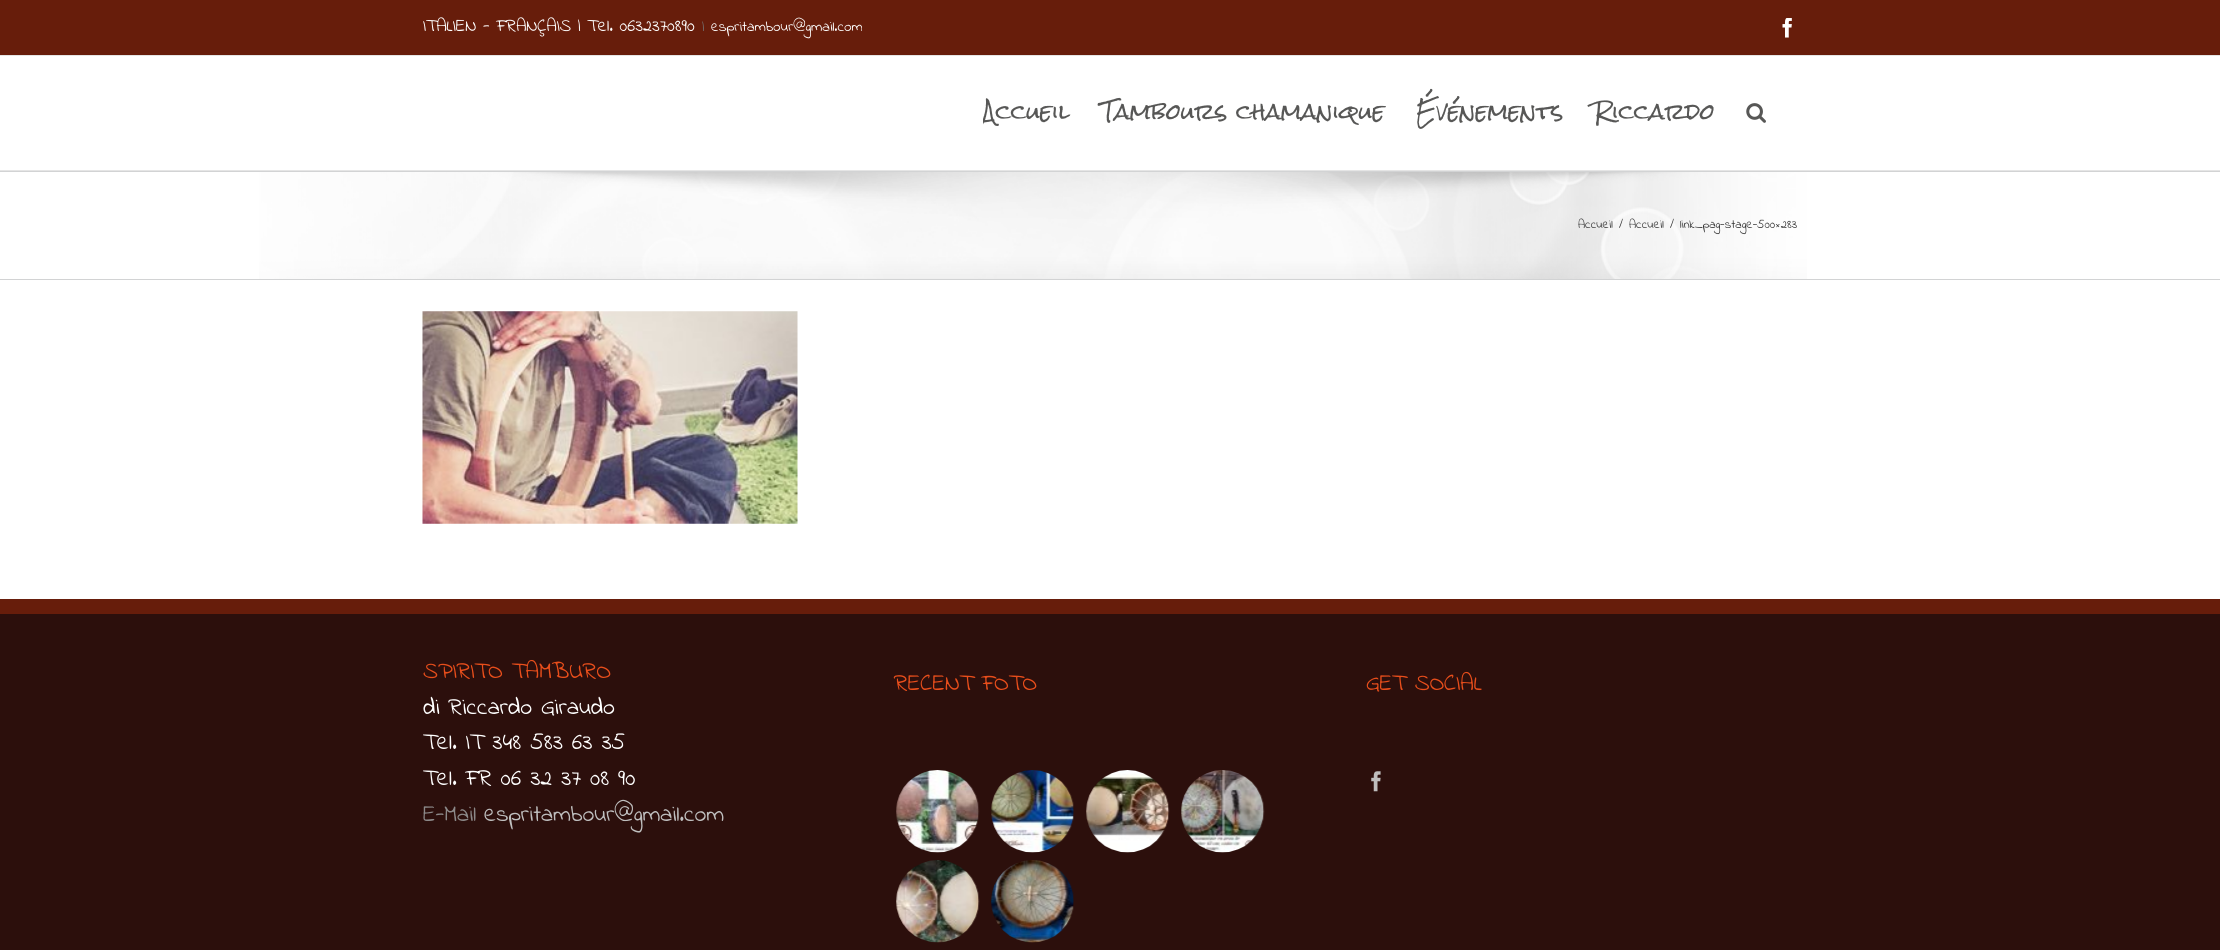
#include <cairo.h>
#include <math.h>
#include <stddef.h>

static cairo_t *ctx;

static void use_color(int r, int g, int b) {
    cairo_set_source_rgb(ctx, r / 255.0, g / 255.0, b / 255.0);
}

static void picture(const char *path, double x, double y, double w, double h) {
    cairo_surface_t *image = cairo_image_surface_create_from_png(path);
    cairo_save(ctx);
    cairo_set_source_surface(ctx, image, x, y);
    cairo_rectangle(ctx, x, y, w, h);
    cairo_fill(ctx);
    cairo_restore(ctx);
    cairo_surface_destroy(image);
}

int main(void) {
    cairo_surface_t *surface = cairo_image_surface_create(CAIRO_FORMAT_RGB24, 2220, 950);
    ctx = cairo_create(surface);
    cairo_font_options_t *options = cairo_font_options_create();
    cairo_font_options_set_hint_metrics(options, CAIRO_HINT_METRICS_OFF);
    cairo_font_options_set_hint_style(options, CAIRO_HINT_STYLE_NONE);
    cairo_set_font_options(ctx, options);
    cairo_set_miter_limit(ctx, 4);
    use_color(255, 255, 255);
    cairo_paint(ctx);
    use_color(103, 29, 11);
    cairo_rectangle(ctx, 0, 0, 2220, 55);
    cairo_fill(ctx);
    use_color(229, 229, 229);
    cairo_rectangle(ctx, 0, 55, 2220, 1);
    cairo_fill(ctx);
    cairo_select_font_face(ctx, "Indie Flower", CAIRO_FONT_SLANT_NORMAL, CAIRO_FONT_WEIGHT_NORMAL);
    cairo_set_font_size(ctx, 18);
    use_color(255, 255, 255);
    cairo_move_to(ctx, 423, 31);
    cairo_show_text(ctx, "ITALIEN - FRANÇAIS | Tel. 0632370890");
    cairo_set_font_size(ctx, 15);
    use_color(116, 116, 116);
    cairo_move_to(ctx, 702, 31);
    cairo_show_text(ctx, "|");
    use_color(255, 255, 255);
    cairo_move_to(ctx, 711, 31);
    cairo_show_text(ctx, "espritambour@gmail.com");
    picture("img1.png", 1782, 18, 10, 20);
    use_color(229, 229, 229);
    cairo_rectangle(ctx, 0, 170, 2220, 1);
    cairo_fill(ctx);
    cairo_save(ctx);
    cairo_rectangle(ctx, 983, 56, 815, 108);
    cairo_clip(ctx);
    cairo_select_font_face(ctx, "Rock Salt", CAIRO_FONT_SLANT_NORMAL, CAIRO_FONT_WEIGHT_NORMAL);
    cairo_set_font_size(ctx, 21.25);
    use_color(87, 87, 86);
    cairo_move_to(ctx, 982, 120);
    cairo_show_text(ctx, "Accueil");
    cairo_restore(ctx);
    cairo_select_font_face(ctx, "Rock Salt", CAIRO_FONT_SLANT_NORMAL, CAIRO_FONT_WEIGHT_NORMAL);
    cairo_set_font_size(ctx, 21.25);
    use_color(87, 87, 86);
    cairo_move_to(ctx, 1101, 120);
    cairo_show_text(ctx, "Tambours chamanique");
    cairo_move_to(ctx, 1416, 120);
    cairo_show_text(ctx, "Événements");
    cairo_move_to(ctx, 1594, 120);
    cairo_show_text(ctx, "Riccardo");
    picture("img2.png", 1746, 103, 20, 20);
    picture("img3.png", 259, 172, 1548, 107);
    use_color(210, 211, 212);
    cairo_rectangle(ctx, 0, 171, 2220, 1);
    cairo_fill(ctx);
    cairo_rectangle(ctx, 0, 279, 2220, 1);
    cairo_fill(ctx);
    cairo_select_font_face(ctx, "Indie Flower", CAIRO_FONT_SLANT_NORMAL, CAIRO_FONT_WEIGHT_NORMAL);
    cairo_set_font_size(ctx, 12.5);
    use_color(51, 51, 51);
    cairo_move_to(ctx, 1578, 228);
    cairo_show_text(ctx, "Accueil");
    cairo_move_to(ctx, 1619, 228);
    cairo_show_text(ctx, "/");
    cairo_move_to(ctx, 1629, 228);
    cairo_show_text(ctx, "Accueil");
    cairo_move_to(ctx, 1670, 228);
    cairo_show_text(ctx, "/");
    cairo_move_to(ctx, 1680, 228);
    cairo_show_text(ctx, "link_pag-stage-500×283");
    picture("img4.png", 422, 311, 376, 213);
    use_color(44, 15, 12);
    cairo_rectangle(ctx, 0, 614, 2220, 336);
    cairo_fill(ctx);
    use_color(103, 29, 11);
    cairo_rectangle(ctx, 0, 599, 2220, 15);
    cairo_fill(ctx);
    cairo_set_font_size(ctx, 23.75);
    use_color(233, 78, 27);
    cairo_move_to(ctx, 423, 678);
    cairo_show_text(ctx, "SPIRITO TAMBURO");
    use_color(255, 255, 255);
    cairo_move_to(ctx, 423, 714);
    cairo_show_text(ctx, "di Riccardo Giraudo");
    cairo_move_to(ctx, 423, 749);
    cairo_show_text(ctx, "Tel. IT 348 583 63 35");
    cairo_move_to(ctx, 423, 785);
    cairo_show_text(ctx, "Tel. FR 06 32 37 08 90");
    use_color(140, 137, 137);
    cairo_move_to(ctx, 423, 821);
    cairo_show_text(ctx, "E-Mail");
    use_color(191, 191, 191);
    cairo_move_to(ctx, 484, 821);
    cairo_show_text(ctx, "espritambour@gmail.com");
    use_color(233, 78, 27);
    cairo_move_to(ctx, 894, 690);
    cairo_show_text(ctx, "RECENT FOTO");
    picture("img5.png", 896, 770, 84, 83);
    picture("img6.png", 991, 770, 83, 83);
    picture("img7.png", 1086, 770, 84, 83);
    picture("img8.png", 1181, 770, 84, 83);
    picture("img9.png", 896, 860, 84, 83);
    picture("img10.png", 991, 860, 83, 83);
    cairo_move_to(ctx, 1366, 690);
    cairo_show_text(ctx, "GET SOCIAL");
    picture("img11.png", 1371, 771, 10, 21);
    cairo_surface_write_to_png(surface, "result.png");
    cairo_font_options_destroy(options);
    cairo_destroy(ctx);
    cairo_surface_destroy(surface);
    return 0;
}
